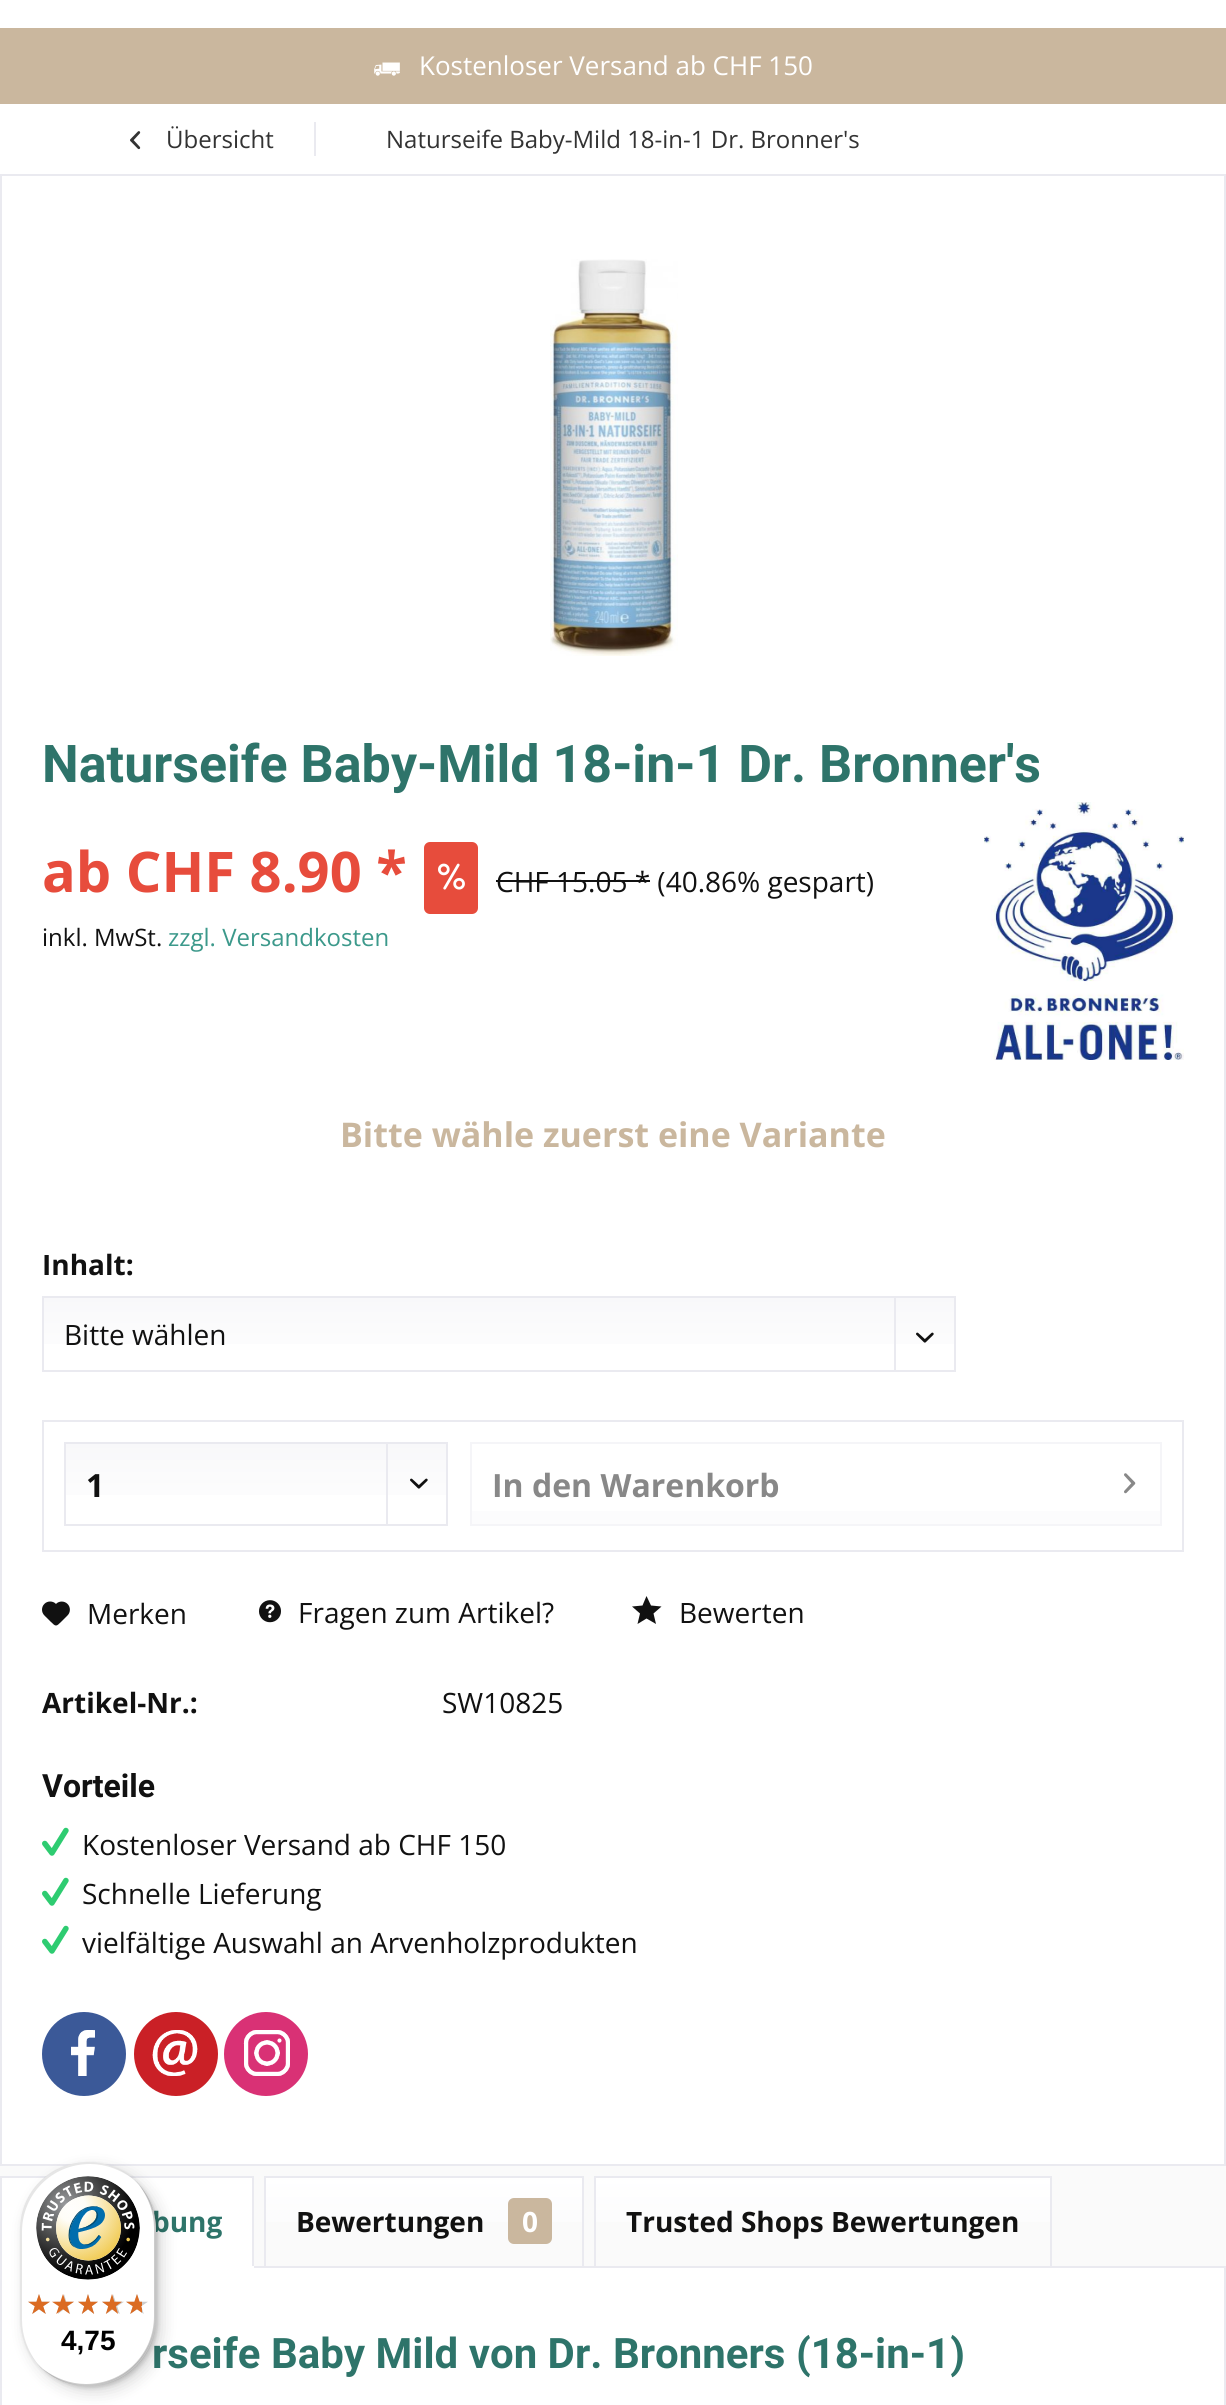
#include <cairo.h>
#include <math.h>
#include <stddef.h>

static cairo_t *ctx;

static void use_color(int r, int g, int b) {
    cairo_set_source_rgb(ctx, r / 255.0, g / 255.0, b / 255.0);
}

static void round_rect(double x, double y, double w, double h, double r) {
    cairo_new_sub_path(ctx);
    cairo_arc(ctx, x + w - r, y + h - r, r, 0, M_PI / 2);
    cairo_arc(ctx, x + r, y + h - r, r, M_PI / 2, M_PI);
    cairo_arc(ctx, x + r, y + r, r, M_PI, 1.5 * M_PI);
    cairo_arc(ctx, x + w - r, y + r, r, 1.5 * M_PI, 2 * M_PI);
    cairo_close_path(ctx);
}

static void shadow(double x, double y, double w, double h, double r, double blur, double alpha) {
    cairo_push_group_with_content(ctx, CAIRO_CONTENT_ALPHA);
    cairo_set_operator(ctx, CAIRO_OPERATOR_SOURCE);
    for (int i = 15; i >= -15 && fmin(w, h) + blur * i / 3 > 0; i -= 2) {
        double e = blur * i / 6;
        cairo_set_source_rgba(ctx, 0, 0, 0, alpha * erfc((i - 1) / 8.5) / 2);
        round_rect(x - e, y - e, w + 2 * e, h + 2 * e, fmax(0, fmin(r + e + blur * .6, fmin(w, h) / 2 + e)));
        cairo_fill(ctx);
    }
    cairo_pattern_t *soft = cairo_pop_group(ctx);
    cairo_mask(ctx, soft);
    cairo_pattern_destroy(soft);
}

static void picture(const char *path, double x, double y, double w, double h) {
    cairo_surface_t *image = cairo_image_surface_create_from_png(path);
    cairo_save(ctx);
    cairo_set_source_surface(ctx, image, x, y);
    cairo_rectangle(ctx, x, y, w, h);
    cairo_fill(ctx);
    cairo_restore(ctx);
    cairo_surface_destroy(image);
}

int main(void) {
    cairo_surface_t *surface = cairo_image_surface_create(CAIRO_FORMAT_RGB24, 1226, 2405);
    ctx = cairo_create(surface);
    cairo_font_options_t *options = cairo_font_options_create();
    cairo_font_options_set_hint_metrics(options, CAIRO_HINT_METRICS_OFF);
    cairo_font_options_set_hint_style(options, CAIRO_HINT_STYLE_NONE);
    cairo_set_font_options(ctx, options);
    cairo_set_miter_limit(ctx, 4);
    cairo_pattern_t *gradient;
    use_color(250, 250, 250);
    cairo_paint(ctx);
    use_color(255, 255, 255);
    cairo_rectangle(ctx, 0, 0, 1226, 28);
    cairo_fill(ctx);
    use_color(202, 183, 158);
    cairo_rectangle(ctx, 0, 28, 1226, 76);
    cairo_fill(ctx);
    picture("img1.png", 374, 62, 26, 14);
    cairo_select_font_face(ctx, "Open Sans", CAIRO_FONT_SLANT_NORMAL, CAIRO_FONT_WEIGHT_NORMAL);
    cairo_set_font_size(ctx, 26);
    use_color(255, 255, 255);
    cairo_move_to(ctx, 419, 75);
    cairo_show_text(ctx, "Kostenloser Versand ab CHF 150");
    cairo_rectangle(ctx, 0, 104, 1226, 70);
    cairo_fill(ctx);
    picture("img2.png", 130, 131, 11, 19);
    cairo_set_font_size(ctx, 24);
    use_color(51, 51, 51);
    cairo_move_to(ctx, 166, 148);
    cairo_show_text(ctx, "Übersicht");
    use_color(234, 234, 240);
    cairo_rectangle(ctx, 314, 122, 2, 34);
    cairo_fill(ctx);
    use_color(51, 51, 51);
    cairo_move_to(ctx, 386, 148);
    cairo_show_text(ctx, "Naturseife Baby-Mild 18-in-1 Dr. Bronner's");
    use_color(255, 255, 255);
    cairo_rectangle(ctx, 2, 176, 1222, 1988);
    cairo_fill(ctx);
    use_color(234, 234, 240);
    cairo_rectangle(ctx, 0, 174, 1226, 2);
    cairo_fill(ctx);
    cairo_rectangle(ctx, 1224, 174, 2, 1992);
    cairo_fill(ctx);
    cairo_rectangle(ctx, 0, 174, 2, 42);
    cairo_fill(ctx);
    cairo_rectangle(ctx, 0, 2164, 1226, 2);
    cairo_fill(ctx);
    cairo_rectangle(ctx, 0, 216, 2, 1950);
    cairo_fill(ctx);
    picture("img3.png", 550, 259, 128, 397);
    cairo_select_font_face(ctx, "Roboto", CAIRO_FONT_SLANT_NORMAL, CAIRO_FONT_WEIGHT_BOLD);
    cairo_set_font_size(ctx, 52);
    use_color(46, 116, 106);
    cairo_move_to(ctx, 42, 782);
    cairo_show_text(ctx, "Naturseife Baby-Mild 18-in-1 Dr. Bronner's");
    cairo_select_font_face(ctx, "Open Sans", CAIRO_FONT_SLANT_NORMAL, CAIRO_FONT_WEIGHT_BOLD);
    cairo_set_font_size(ctx, 56);
    use_color(231, 76, 60);
    cairo_move_to(ctx, 42, 892);
    cairo_show_text(ctx, "ab CHF 8.90 *");
    round_rect(424, 842, 54, 72, 6);
    cairo_fill(ctx);
    picture("img4.png", 438, 863, 27, 27);
    cairo_select_font_face(ctx, "Open Sans", CAIRO_FONT_SLANT_NORMAL, CAIRO_FONT_WEIGHT_NORMAL);
    cairo_set_font_size(ctx, 28);
    use_color(17, 17, 17);
    cairo_move_to(ctx, 496, 892);
    cairo_show_text(ctx, "CHF 15.05 * (40.86% gespart)");
    cairo_rectangle(ctx, 496, 880, 154, 2);
    cairo_fill(ctx);
    cairo_set_font_size(ctx, 24);
    cairo_move_to(ctx, 42, 946);
    cairo_show_text(ctx, "inkl. MwSt.");
    use_color(60, 153, 139);
    cairo_move_to(ctx, 168, 946);
    cairo_show_text(ctx, "zzgl. Versandkosten");
    cairo_select_font_face(ctx, "Open Sans", CAIRO_FONT_SLANT_NORMAL, CAIRO_FONT_WEIGHT_BOLD);
    cairo_set_font_size(ctx, 34);
    use_color(202, 183, 158);
    cairo_move_to(ctx, 340, 1147);
    cairo_show_text(ctx, "Bitte wähle zuerst eine Variante");
    cairo_set_font_size(ctx, 28);
    use_color(17, 17, 17);
    cairo_move_to(ctx, 42, 1275);
    cairo_show_text(ctx, "Inhalt:");
    gradient = cairo_pattern_create_linear(499, 1298, 499, 1370);
    cairo_pattern_add_color_stop_rgba(gradient, 0, 0.973, 0.973, 0.98, 1);
    cairo_pattern_add_color_stop_rgba(gradient, 1, 1, 1, 1, 1);
    cairo_set_source(ctx, gradient);
    cairo_pattern_destroy(gradient);
    cairo_rectangle(ctx, 44, 1298, 910, 46);
    cairo_fill(ctx);
    cairo_rectangle(ctx, 43, 1297, 912, 74);
    use_color(234, 234, 240);
    cairo_stroke(ctx);
    cairo_select_font_face(ctx, "Open Sans", CAIRO_FONT_SLANT_NORMAL, CAIRO_FONT_WEIGHT_NORMAL);
    use_color(17, 17, 17);
    cairo_move_to(ctx, 64, 1345);
    cairo_show_text(ctx, "Bitte wählen");
    use_color(234, 234, 240);
    cairo_rectangle(ctx, 894, 1298, 2, 72);
    cairo_fill(ctx);
    picture("img5.png", 916, 1332, 18, 11);
    cairo_rectangle(ctx, 43, 1421, 1140, 130);
    cairo_stroke(ctx);
    gradient = cairo_pattern_create_linear(256, 1444, 256, 1524);
    cairo_pattern_add_color_stop_rgba(gradient, 0, 0.973, 0.973, 0.98, 1);
    cairo_pattern_add_color_stop_rgba(gradient, 1, 1, 1, 1, 1);
    cairo_set_source(ctx, gradient);
    cairo_pattern_destroy(gradient);
    cairo_rectangle(ctx, 66, 1444, 380, 51);
    cairo_fill(ctx);
    cairo_rectangle(ctx, 65, 1443, 382, 82);
    use_color(234, 234, 240);
    cairo_stroke(ctx);
    cairo_select_font_face(ctx, "Open Sans", CAIRO_FONT_SLANT_NORMAL, CAIRO_FONT_WEIGHT_BOLD);
    cairo_set_font_size(ctx, 32);
    use_color(17, 17, 17);
    cairo_move_to(ctx, 86, 1497);
    cairo_show_text(ctx, "1");
    use_color(234, 234, 240);
    cairo_rectangle(ctx, 386, 1444, 2, 80);
    cairo_fill(ctx);
    picture("img6.png", 410, 1478, 18, 11);
    gradient = cairo_pattern_create_linear(816, 1444, 816, 1524);
    cairo_pattern_add_color_stop_rgba(gradient, 0, 1, 1, 1, 1);
    cairo_pattern_add_color_stop_rgba(gradient, 1, 0.988, 0.988, 0.992, 1);
    cairo_set_source(ctx, gradient);
    cairo_pattern_destroy(gradient);
    cairo_rectangle(ctx, 472, 1511, 688, 13);
    cairo_fill(ctx);
    cairo_rectangle(ctx, 471, 1443, 690, 82);
    use_color(245, 245, 248);
    cairo_stroke(ctx);
    use_color(136, 136, 136);
    cairo_move_to(ctx, 492, 1497);
    cairo_show_text(ctx, "In den Warenkorb");
    picture("img7.png", 1124, 1473, 12, 21);
    picture("img8.png", 42, 1601, 28, 25);
    cairo_select_font_face(ctx, "Open Sans", CAIRO_FONT_SLANT_NORMAL, CAIRO_FONT_WEIGHT_NORMAL);
    cairo_set_font_size(ctx, 28);
    use_color(17, 17, 17);
    cairo_move_to(ctx, 87, 1624);
    cairo_show_text(ctx, "Merken");
    picture("img9.png", 259, 1600, 22, 23);
    cairo_move_to(ctx, 298, 1623);
    cairo_show_text(ctx, "Fragen zum Artikel?");
    cairo_new_path(ctx);
    cairo_move_to(ctx, 646.5, 1596);
    cairo_line_to(ctx, 642.5, 1605.5);
    cairo_line_to(ctx, 632, 1606.5);
    cairo_line_to(ctx, 640, 1613.5);
    cairo_line_to(ctx, 637.5, 1624);
    cairo_line_to(ctx, 646.5, 1618.5);
    cairo_line_to(ctx, 656, 1624);
    cairo_line_to(ctx, 653.5, 1613.5);
    cairo_line_to(ctx, 661.5, 1606.5);
    cairo_line_to(ctx, 651, 1605.5);
    cairo_close_path(ctx);
    cairo_fill(ctx);
    cairo_move_to(ctx, 679, 1623);
    cairo_show_text(ctx, "Bewerten");
    picture("img10.png", 984, 802, 200, 258);
    cairo_select_font_face(ctx, "Open Sans", CAIRO_FONT_SLANT_NORMAL, CAIRO_FONT_WEIGHT_BOLD);
    cairo_move_to(ctx, 42, 1713);
    cairo_show_text(ctx, "Artikel-Nr.:");
    cairo_select_font_face(ctx, "Open Sans", CAIRO_FONT_SLANT_NORMAL, CAIRO_FONT_WEIGHT_NORMAL);
    cairo_move_to(ctx, 442, 1713);
    cairo_show_text(ctx, "SW10825");
    cairo_select_font_face(ctx, "Roboto", CAIRO_FONT_SLANT_NORMAL, CAIRO_FONT_WEIGHT_BOLD);
    cairo_set_font_size(ctx, 32);
    cairo_move_to(ctx, 42, 1797);
    cairo_show_text(ctx, "Vorteile");
    picture("img11.png", 42, 1827, 27, 29);
    cairo_select_font_face(ctx, "Open Sans", CAIRO_FONT_SLANT_NORMAL, CAIRO_FONT_WEIGHT_NORMAL);
    cairo_set_font_size(ctx, 28);
    cairo_move_to(ctx, 82, 1855);
    cairo_show_text(ctx, "Kostenloser Versand ab CHF 150");
    picture("img11.png", 42, 1877, 27, 29);
    cairo_move_to(ctx, 82, 1904);
    cairo_show_text(ctx, "Schnelle Lieferung");
    picture("img11.png", 42, 1925, 27, 29);
    cairo_move_to(ctx, 82, 1953);
    cairo_show_text(ctx, "vielfältige Auswahl an Arvenholzprodukten");
    use_color(59, 89, 152);
    cairo_new_path(ctx);
    cairo_arc(ctx, 84, 2054, 42, 0, 2 * M_PI);
    cairo_fill(ctx);
    picture("img12.png", 71, 2030, 24, 46);
    use_color(202, 32, 38);
    cairo_arc(ctx, 176, 2054, 42, 0, 2 * M_PI);
    cairo_fill(ctx);
    picture("img13.png", 152, 2030, 46, 46);
    use_color(217, 49, 117);
    cairo_arc(ctx, 266, 2054, 42, 0, 2 * M_PI);
    cairo_fill(ctx);
    picture("img14.png", 243, 2030, 47, 46);
    use_color(255, 255, 255);
    cairo_rectangle(ctx, 2, 2178, 250, 88);
    cairo_fill(ctx);
    use_color(234, 234, 240);
    cairo_rectangle(ctx, 0, 2176, 254, 2);
    cairo_fill(ctx);
    use_color(255, 255, 255);
    cairo_rectangle(ctx, 1, 2267, 1224, 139);
    cairo_fill_preserve(ctx);
    use_color(234, 234, 240);
    cairo_stroke(ctx);
    cairo_rectangle(ctx, 252, 2176, 2, 92);
    cairo_fill(ctx);
    use_color(255, 255, 255);
    cairo_rectangle(ctx, 0, 2266, 254, 2);
    cairo_fill(ctx);
    use_color(234, 234, 240);
    cairo_rectangle(ctx, 0, 2176, 2, 92);
    cairo_fill(ctx);
    cairo_select_font_face(ctx, "Open Sans", CAIRO_FONT_SLANT_NORMAL, CAIRO_FONT_WEIGHT_BOLD);
    use_color(46, 116, 106);
    cairo_move_to(ctx, 152, 2232);
    cairo_show_text(ctx, "bung");
    gradient = cairo_pattern_create_linear(424, 2178, 424, 2266);
    cairo_pattern_add_color_stop_rgba(gradient, 0, 1, 1, 1, 1);
    cairo_pattern_add_color_stop_rgba(gradient, 1, 0.973, 0.973, 0.98, 1);
    cairo_set_source(ctx, gradient);
    cairo_pattern_destroy(gradient);
    cairo_rectangle(ctx, 266, 2178, 316, 44);
    cairo_fill(ctx);
    cairo_rectangle(ctx, 265, 2177, 318, 90);
    use_color(234, 234, 240);
    cairo_stroke(ctx);
    use_color(17, 17, 17);
    cairo_move_to(ctx, 296, 2232);
    cairo_show_text(ctx, "Bewertungen");
    use_color(202, 183, 158);
    round_rect(508, 2198, 44, 46, 6);
    cairo_fill(ctx);
    use_color(255, 255, 255);
    cairo_move_to(ctx, 522, 2232);
    cairo_show_text(ctx, "0");
    gradient = cairo_pattern_create_linear(823, 2178, 823, 2266);
    cairo_pattern_add_color_stop_rgba(gradient, 0, 1, 1, 1, 1);
    cairo_pattern_add_color_stop_rgba(gradient, 1, 0.973, 0.973, 0.98, 1);
    cairo_set_source(ctx, gradient);
    cairo_pattern_destroy(gradient);
    cairo_rectangle(ctx, 596, 2178, 454, 44);
    cairo_fill(ctx);
    cairo_rectangle(ctx, 595, 2177, 456, 90);
    use_color(234, 234, 240);
    cairo_stroke(ctx);
    use_color(17, 17, 17);
    cairo_move_to(ctx, 626, 2232);
    cairo_show_text(ctx, "Trusted Shops Bewertungen");
    cairo_select_font_face(ctx, "Roboto", CAIRO_FONT_SLANT_NORMAL, CAIRO_FONT_WEIGHT_BOLD);
    cairo_set_font_size(ctx, 42);
    use_color(46, 116, 106);
    cairo_move_to(ctx, 152, 2368);
    cairo_show_text(ctx, "rseife Baby Mild von Dr. Bronners (18-in-1)");
    use_color(0, 0, 0);
    shadow(26, 2168, 136, 224, 68, 8, 0.15);
    shadow(22, 2164, 136, 224, 68, 2, 0.15);
    use_color(255, 255, 255);
    round_rect(20, 2162, 136, 224, 68);
    cairo_fill(ctx);
    cairo_set_source_rgba(ctx, 0, 0, 0, 0.1);
    cairo_new_path(ctx);
    cairo_move_to(ctx, 90, 2164);
    cairo_curve_to(ctx, 106, 2164, 121, 2170, 133, 2179);
    cairo_curve_to(ctx, 121, 2168, 105, 2162, 88, 2162);
    cairo_curve_to(ctx, 50, 2162, 20, 2192, 20, 2230);
    cairo_line_to(ctx, 20, 2318);
    cairo_curve_to(ctx, 20, 2335, 26, 2351, 37, 2363);
    cairo_curve_to(ctx, 28, 2351, 22, 2336, 22, 2320);
    cairo_line_to(ctx, 22, 2232);
    cairo_curve_to(ctx, 22, 2194, 52, 2164, 90, 2164);
    cairo_close_path(ctx);
    cairo_fill(ctx);
    cairo_set_source_rgba(ctx, 0, 0, 0, 0.2);
    cairo_new_path(ctx);
    cairo_move_to(ctx, 43, 2369);
    cairo_curve_to(ctx, 55, 2380, 71, 2386, 88, 2386);
    cairo_curve_to(ctx, 126, 2386, 156, 2356, 156, 2318);
    cairo_line_to(ctx, 156, 2230);
    cairo_curve_to(ctx, 156, 2213, 150, 2197, 139, 2185);
    cairo_curve_to(ctx, 148, 2197, 154, 2212, 154, 2228);
    cairo_line_to(ctx, 154, 2316);
    cairo_curve_to(ctx, 154, 2354, 124, 2384, 86, 2384);
    cairo_curve_to(ctx, 70, 2384, 55, 2378, 43, 2369);
    cairo_close_path(ctx);
    cairo_fill(ctx);
    cairo_set_source_rgba(ctx, 0.196, 0.196, 0.196, 0.2);
    cairo_new_path(ctx);
    cairo_move_to(ctx, 38, 2365);
    cairo_curve_to(ctx, 51, 2378, 68, 2386, 88, 2386);
    cairo_curve_to(ctx, 126, 2386, 156, 2356, 156, 2318);
    cairo_line_to(ctx, 156, 2230);
    cairo_curve_to(ctx, 156, 2210, 148, 2193, 135, 2180);
    cairo_curve_to(ctx, 147, 2193, 155, 2210, 155, 2229);
    cairo_line_to(ctx, 155, 2317);
    cairo_curve_to(ctx, 155, 2354, 124, 2385, 87, 2385);
    cairo_curve_to(ctx, 68, 2385, 51, 2377, 38, 2365);
    cairo_close_path(ctx);
    cairo_fill(ctx);
    cairo_set_source_rgba(ctx, 1, 1, 1, 0.3);
    cairo_new_path(ctx);
    cairo_move_to(ctx, 47, 2372);
    cairo_curve_to(ctx, 59, 2381, 73, 2386, 88, 2386);
    cairo_curve_to(ctx, 126, 2386, 156, 2356, 156, 2318);
    cairo_line_to(ctx, 156, 2230);
    cairo_curve_to(ctx, 156, 2215, 151, 2201, 142, 2189);
    cairo_curve_to(ctx, 150, 2200, 155, 2214, 155, 2229);
    cairo_line_to(ctx, 155, 2317);
    cairo_curve_to(ctx, 155, 2355, 125, 2385, 87, 2385);
    cairo_curve_to(ctx, 72, 2385, 58, 2380, 47, 2372);
    cairo_close_path(ctx);
    cairo_fill(ctx);
    picture("img15.png", 36, 2176, 104, 104);
    picture("img16.png", 28, 2294, 22, 20);
    picture("img17.png", 54, 2294, 20, 20);
    picture("img18.png", 78, 2294, 20, 20);
    picture("img19.png", 102, 2294, 22, 20);
    picture("img19.png", 126, 2294, 22, 20);
    picture("img20.png", 28, 2294, 22, 20);
    picture("img21.png", 52, 2294, 22, 20);
    picture("img22.png", 78, 2294, 20, 20);
    picture("img23.png", 102, 2294, 20, 20);
    picture("img24.png", 126, 2294, 16, 20);
    cairo_select_font_face(ctx, "Liberation Sans", CAIRO_FONT_SLANT_NORMAL, CAIRO_FONT_WEIGHT_BOLD);
    cairo_set_font_size(ctx, 28);
    use_color(0, 0, 0);
    cairo_move_to(ctx, 61, 2350);
    cairo_show_text(ctx, "4,75");
    cairo_surface_write_to_png(surface, "result.png");
    cairo_font_options_destroy(options);
    cairo_destroy(ctx);
    cairo_surface_destroy(surface);
    return 0;
}
